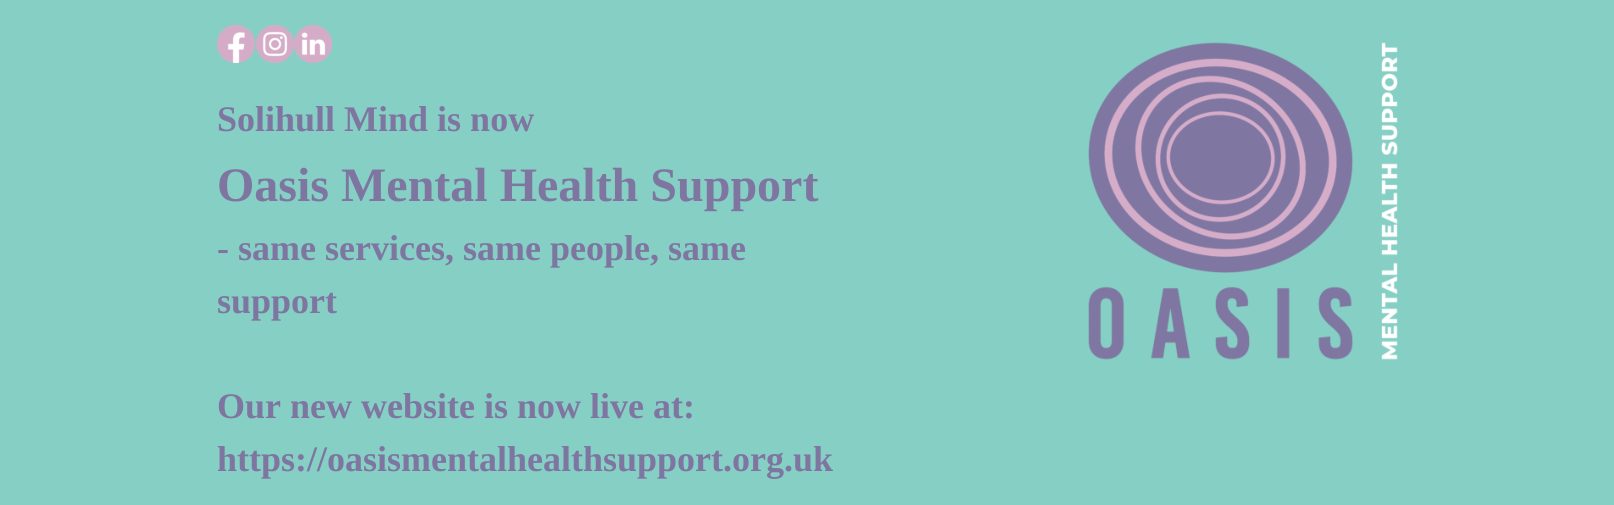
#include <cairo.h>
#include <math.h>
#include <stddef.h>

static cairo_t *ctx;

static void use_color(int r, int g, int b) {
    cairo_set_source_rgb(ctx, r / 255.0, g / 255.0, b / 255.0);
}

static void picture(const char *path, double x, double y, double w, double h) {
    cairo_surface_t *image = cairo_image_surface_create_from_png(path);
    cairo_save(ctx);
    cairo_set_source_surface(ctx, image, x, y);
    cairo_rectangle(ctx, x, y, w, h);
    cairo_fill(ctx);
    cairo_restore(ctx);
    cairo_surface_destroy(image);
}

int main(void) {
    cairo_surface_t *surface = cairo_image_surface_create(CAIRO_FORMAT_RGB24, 1614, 505);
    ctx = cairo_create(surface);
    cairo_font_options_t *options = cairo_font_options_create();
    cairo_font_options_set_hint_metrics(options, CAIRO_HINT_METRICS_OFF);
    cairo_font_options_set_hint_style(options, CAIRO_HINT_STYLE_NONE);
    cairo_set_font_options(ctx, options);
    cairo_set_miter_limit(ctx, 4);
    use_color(134, 207, 196);
    cairo_paint(ctx);
    picture("img1.png", 217, 25, 38, 38);
    picture("img2.png", 256, 25, 38, 38);
    picture("img3.png", 294, 25, 38, 38);
    picture("img4.png", 1088, 42, 310, 318);
    cairo_select_font_face(ctx, "Liberation Serif", CAIRO_FONT_SLANT_NORMAL, CAIRO_FONT_WEIGHT_BOLD);
    cairo_set_font_size(ctx, 36);
    use_color(126, 118, 161);
    cairo_move_to(ctx, 217, 131);
    cairo_show_text(ctx, "Solihull Mind is now");
    cairo_set_font_size(ctx, 48);
    cairo_move_to(ctx, 217, 201);
    cairo_show_text(ctx, "Oasis Mental Health Support");
    cairo_set_font_size(ctx, 36);
    cairo_move_to(ctx, 217, 260);
    cairo_show_text(ctx, "- same services, same people, same");
    cairo_move_to(ctx, 217, 313);
    cairo_show_text(ctx, "support");
    cairo_move_to(ctx, 217, 418);
    cairo_show_text(ctx, "Our new website is now live at:");
    cairo_move_to(ctx, 217, 471);
    cairo_show_text(ctx, "https://oasismentalhealthsupport.org.uk");
    cairo_surface_write_to_png(surface, "result.png");
    cairo_font_options_destroy(options);
    cairo_destroy(ctx);
    cairo_surface_destroy(surface);
    return 0;
}
